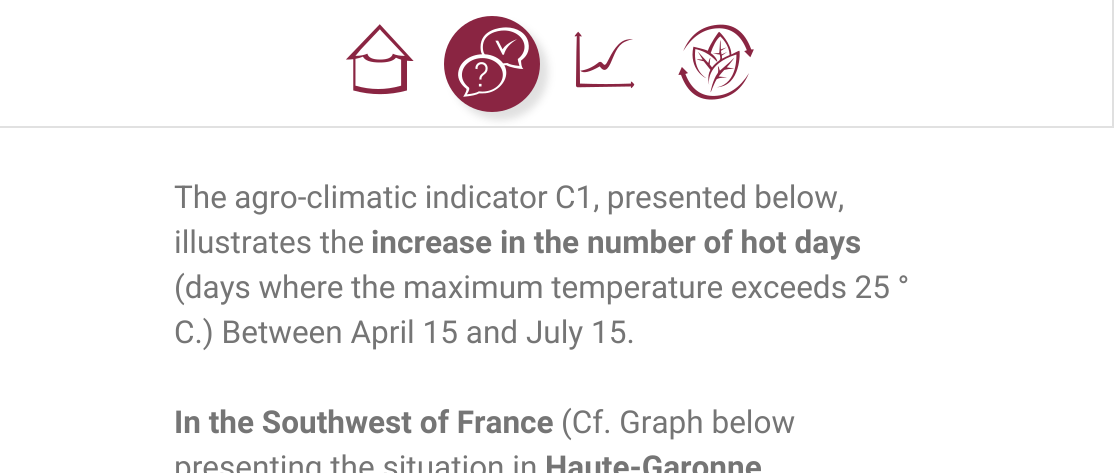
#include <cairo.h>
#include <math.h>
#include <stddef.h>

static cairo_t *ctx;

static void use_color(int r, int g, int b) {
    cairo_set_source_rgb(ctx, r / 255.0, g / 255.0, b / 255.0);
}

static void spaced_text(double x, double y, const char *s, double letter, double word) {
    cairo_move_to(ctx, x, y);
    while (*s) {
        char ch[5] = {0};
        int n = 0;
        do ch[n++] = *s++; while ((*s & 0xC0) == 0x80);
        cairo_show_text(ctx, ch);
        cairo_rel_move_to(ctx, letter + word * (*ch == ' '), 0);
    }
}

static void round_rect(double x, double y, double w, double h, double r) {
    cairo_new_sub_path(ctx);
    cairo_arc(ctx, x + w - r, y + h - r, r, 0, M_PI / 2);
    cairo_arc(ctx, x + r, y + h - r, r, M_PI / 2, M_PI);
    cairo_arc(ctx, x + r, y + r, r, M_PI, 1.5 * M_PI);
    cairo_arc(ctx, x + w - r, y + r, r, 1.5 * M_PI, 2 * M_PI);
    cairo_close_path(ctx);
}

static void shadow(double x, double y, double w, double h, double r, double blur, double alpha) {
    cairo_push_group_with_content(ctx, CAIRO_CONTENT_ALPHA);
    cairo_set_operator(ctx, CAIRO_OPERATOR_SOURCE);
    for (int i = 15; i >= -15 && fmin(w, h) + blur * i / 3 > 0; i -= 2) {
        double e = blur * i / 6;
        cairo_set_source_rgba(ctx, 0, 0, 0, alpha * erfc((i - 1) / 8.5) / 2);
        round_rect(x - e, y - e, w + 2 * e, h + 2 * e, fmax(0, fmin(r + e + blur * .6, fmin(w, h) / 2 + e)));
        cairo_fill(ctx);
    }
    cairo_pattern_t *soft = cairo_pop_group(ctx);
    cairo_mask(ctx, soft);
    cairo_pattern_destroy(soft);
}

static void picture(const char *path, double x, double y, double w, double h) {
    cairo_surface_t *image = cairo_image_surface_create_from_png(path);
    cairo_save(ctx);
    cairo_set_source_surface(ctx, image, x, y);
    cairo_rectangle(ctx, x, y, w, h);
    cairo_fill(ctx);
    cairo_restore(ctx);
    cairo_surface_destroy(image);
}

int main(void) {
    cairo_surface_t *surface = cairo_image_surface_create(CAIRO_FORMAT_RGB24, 1114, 473);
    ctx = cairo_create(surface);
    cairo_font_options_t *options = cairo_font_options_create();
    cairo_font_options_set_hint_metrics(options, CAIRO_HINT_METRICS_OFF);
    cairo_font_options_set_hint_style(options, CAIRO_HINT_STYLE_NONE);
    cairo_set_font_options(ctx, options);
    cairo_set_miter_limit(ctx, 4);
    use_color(255, 255, 255);
    cairo_paint(ctx);
    use_color(224, 224, 224);
    cairo_new_path(ctx);
    cairo_move_to(ctx, 1114, 0);
    cairo_line_to(ctx, 1114, 128);
    cairo_line_to(ctx, 1112, 126);
    cairo_line_to(ctx, 1112, 0);
    cairo_close_path(ctx);
    cairo_fill(ctx);
    cairo_set_source_rgba(ctx, 0, 0, 0, 0.12);
    cairo_new_path(ctx);
    cairo_move_to(ctx, 1114, 128);
    cairo_line_to(ctx, 0, 128);
    cairo_line_to(ctx, 0, 126);
    cairo_line_to(ctx, 1112, 126);
    cairo_close_path(ctx);
    cairo_fill(ctx);
    picture("img1.png", 346, 24, 68, 71);
    cairo_save(ctx);
    cairo_rectangle(ctx, 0, 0, 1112, 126);
    cairo_clip(ctx);
    use_color(224, 224, 224);
    shadow(452, 24, 96, 96, 48, 4, 1);
    cairo_restore(ctx);
    use_color(138, 37, 66);
    cairo_arc(ctx, 492, 64, 48, 0, 2 * M_PI);
    cairo_fill(ctx);
    picture("img2.png", 458, 27, 71, 70);
    picture("img3.png", 574, 31, 61, 58);
    picture("img4.png", 678, 24, 76, 76);
    cairo_select_font_face(ctx, "Roboto", CAIRO_FONT_SLANT_NORMAL, CAIRO_FONT_WEIGHT_NORMAL);
    cairo_set_font_size(ctx, 31.5);
    use_color(117, 117, 117);
    spaced_text(174, 208, "The agro-climatic indicator C1, presented below,", 0, -0.5);
    cairo_move_to(ctx, 174, 253);
    cairo_show_text(ctx, "illustrates the");
    cairo_select_font_face(ctx, "Roboto", CAIRO_FONT_SLANT_NORMAL, CAIRO_FONT_WEIGHT_BOLD);
    cairo_move_to(ctx, 371, 253);
    cairo_show_text(ctx, "increase in the number of hot days");
    cairo_select_font_face(ctx, "Roboto", CAIRO_FONT_SLANT_NORMAL, CAIRO_FONT_WEIGHT_NORMAL);
    spaced_text(174, 298, "(days where the maximum temperature exceeds 25 °", 0, -0.25);
    cairo_move_to(ctx, 174, 343);
    cairo_show_text(ctx, "C.) Between April 15 and July 15.");
    cairo_select_font_face(ctx, "Roboto", CAIRO_FONT_SLANT_NORMAL, CAIRO_FONT_WEIGHT_BOLD);
    cairo_move_to(ctx, 174, 433);
    cairo_show_text(ctx, "In the Southwest of France");
    cairo_select_font_face(ctx, "Roboto", CAIRO_FONT_SLANT_NORMAL, CAIRO_FONT_WEIGHT_NORMAL);
    cairo_move_to(ctx, 561, 433);
    cairo_show_text(ctx, "(Cf. Graph below");
    cairo_move_to(ctx, 174, 478);
    cairo_show_text(ctx, "presenting the situation in");
    cairo_select_font_face(ctx, "Roboto", CAIRO_FONT_SLANT_NORMAL, CAIRO_FONT_WEIGHT_BOLD);
    cairo_move_to(ctx, 545, 478);
    cairo_show_text(ctx, "Haute-Garonne");
    cairo_surface_write_to_png(surface, "result.png");
    cairo_font_options_destroy(options);
    cairo_destroy(ctx);
    cairo_surface_destroy(surface);
    return 0;
}
